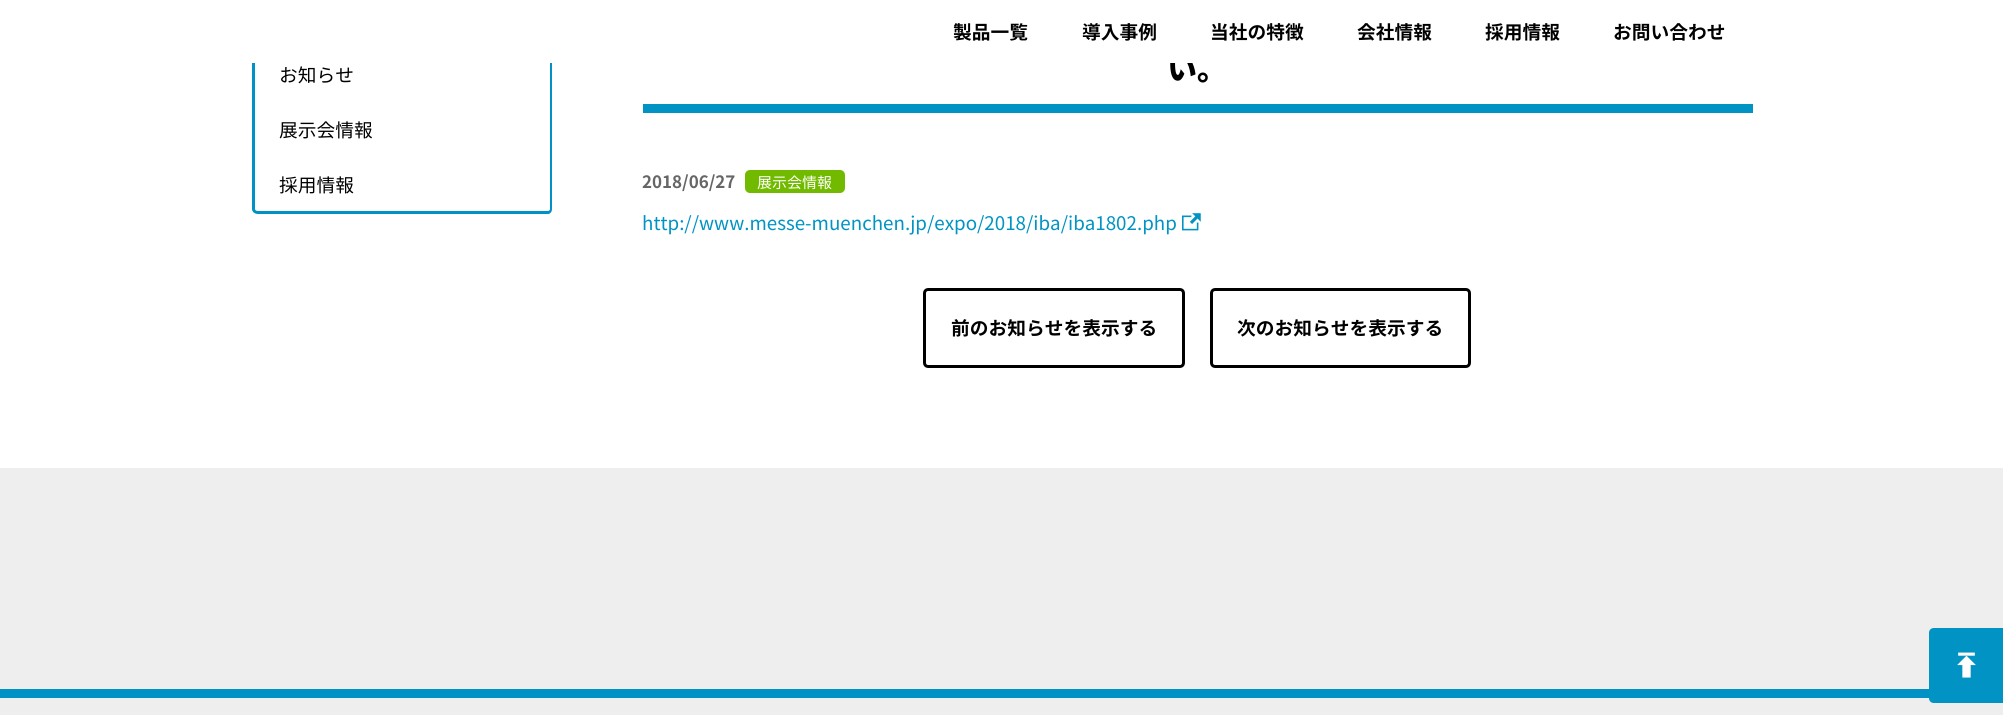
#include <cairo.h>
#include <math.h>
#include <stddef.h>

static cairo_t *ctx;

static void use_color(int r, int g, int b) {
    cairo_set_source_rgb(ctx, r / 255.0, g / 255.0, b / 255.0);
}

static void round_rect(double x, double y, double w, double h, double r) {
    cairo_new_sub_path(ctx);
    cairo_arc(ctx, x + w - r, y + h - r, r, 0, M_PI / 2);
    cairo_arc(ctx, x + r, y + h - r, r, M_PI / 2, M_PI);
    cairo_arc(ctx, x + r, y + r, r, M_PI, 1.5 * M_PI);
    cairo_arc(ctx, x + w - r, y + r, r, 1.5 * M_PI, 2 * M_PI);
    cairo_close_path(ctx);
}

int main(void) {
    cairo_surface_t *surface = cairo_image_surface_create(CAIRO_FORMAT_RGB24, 2003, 715);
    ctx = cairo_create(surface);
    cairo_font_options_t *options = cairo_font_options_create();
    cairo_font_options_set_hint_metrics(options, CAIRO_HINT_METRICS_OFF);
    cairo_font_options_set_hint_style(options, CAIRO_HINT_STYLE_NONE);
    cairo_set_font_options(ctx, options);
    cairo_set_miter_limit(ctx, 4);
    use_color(255, 255, 255);
    cairo_paint(ctx);
    use_color(0, 146, 197);
    cairo_set_fill_rule(ctx, CAIRO_FILL_RULE_EVEN_ODD);
    cairo_new_path(ctx);
    cairo_move_to(ctx, 252, 46);
    cairo_line_to(ctx, 552, 46);
    cairo_line_to(ctx, 552, 209);
    cairo_curve_to(ctx, 552, 212, 550, 214, 548, 214);
    cairo_line_to(ctx, 258, 214);
    cairo_curve_to(ctx, 255, 214, 252, 212, 252, 209);
    cairo_close_path(ctx);
    cairo_move_to(ctx, 255, 46);
    cairo_line_to(ctx, 550, 46);
    cairo_line_to(ctx, 550, 209);
    cairo_curve_to(ctx, 550, 210, 549, 211, 548, 211);
    cairo_line_to(ctx, 258, 211);
    cairo_curve_to(ctx, 256, 211, 255, 210, 255, 209);
    cairo_close_path(ctx);
    cairo_fill(ctx);
    cairo_select_font_face(ctx, "Noto Sans JP Black", CAIRO_FONT_SLANT_NORMAL, CAIRO_FONT_WEIGHT_NORMAL);
    cairo_set_font_size(ctx, 30);
    use_color(0, 0, 0);
    cairo_move_to(ctx, 1167, 80);
    cairo_show_text(ctx, "い。");
    use_color(255, 255, 255);
    cairo_rectangle(ctx, 252, 46, 941, 17);
    cairo_fill(ctx);
    cairo_select_font_face(ctx, "Noto Sans JP", CAIRO_FONT_SLANT_NORMAL, CAIRO_FONT_WEIGHT_BOLD);
    cairo_set_font_size(ctx, 18.75);
    use_color(0, 0, 0);
    cairo_move_to(ctx, 953, 39);
    cairo_show_text(ctx, "製品一覧");
    cairo_move_to(ctx, 1082, 39);
    cairo_show_text(ctx, "導入事例");
    cairo_move_to(ctx, 1210, 39);
    cairo_show_text(ctx, "当社の特徴");
    cairo_move_to(ctx, 1357, 39);
    cairo_show_text(ctx, "会社情報");
    cairo_move_to(ctx, 1485, 39);
    cairo_show_text(ctx, "採用情報");
    cairo_move_to(ctx, 1613, 39);
    cairo_show_text(ctx, "お問い合わせ");
    cairo_select_font_face(ctx, "Noto Sans JP", CAIRO_FONT_SLANT_NORMAL, CAIRO_FONT_WEIGHT_NORMAL);
    cairo_move_to(ctx, 279, 82);
    cairo_show_text(ctx, "お知らせ");
    cairo_move_to(ctx, 279, 137);
    cairo_show_text(ctx, "展示会情報");
    cairo_move_to(ctx, 279, 192);
    cairo_show_text(ctx, "採用情報");
    use_color(0, 147, 195);
    cairo_rectangle(ctx, 643, 104, 1110, 9);
    cairo_fill(ctx);
    cairo_select_font_face(ctx, "Noto Sans JP", CAIRO_FONT_SLANT_NORMAL, CAIRO_FONT_WEIGHT_BOLD);
    cairo_set_font_size(ctx, 17);
    use_color(102, 102, 102);
    cairo_move_to(ctx, 642, 188);
    cairo_show_text(ctx, "2018/06/27");
    use_color(114, 186, 0);
    round_rect(745, 170, 100, 23, 5);
    cairo_fill(ctx);
    cairo_select_font_face(ctx, "Noto Sans JP", CAIRO_FONT_SLANT_NORMAL, CAIRO_FONT_WEIGHT_NORMAL);
    cairo_set_font_size(ctx, 15);
    use_color(255, 255, 255);
    cairo_move_to(ctx, 757, 188);
    cairo_show_text(ctx, "展示会情報");
    cairo_set_font_size(ctx, 18.75);
    use_color(0, 147, 195);
    cairo_move_to(ctx, 642, 230);
    cairo_show_text(ctx, "http://www.messe-muenchen.jp/expo/2018/iba/iba1802.php");
    cairo_select_font_face(ctx, "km", CAIRO_FONT_SLANT_NORMAL, CAIRO_FONT_WEIGHT_NORMAL);
    cairo_move_to(ctx, 1182, 230);
    cairo_show_text(ctx, "3");
    round_rect(924.5, 289.5, 259, 77, 3.5);
    use_color(0, 0, 0);
    cairo_set_line_width(ctx, 3);
    cairo_stroke(ctx);
    cairo_select_font_face(ctx, "Noto Sans JP", CAIRO_FONT_SLANT_NORMAL, CAIRO_FONT_WEIGHT_BOLD);
    cairo_move_to(ctx, 951, 335);
    cairo_show_text(ctx, "前のお知らせを表示する");
    round_rect(1211.5, 289.5, 258, 77, 3.5);
    cairo_stroke(ctx);
    cairo_move_to(ctx, 1237, 335);
    cairo_show_text(ctx, "次のお知らせを表示する");
    use_color(238, 238, 238);
    cairo_rectangle(ctx, 0, 468, 2003, 221);
    cairo_fill(ctx);
    cairo_rectangle(ctx, 0, 698, 2003, 17);
    cairo_fill(ctx);
    use_color(0, 147, 195);
    cairo_new_path(ctx);
    cairo_move_to(ctx, 1934, 628);
    cairo_line_to(ctx, 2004, 628);
    cairo_line_to(ctx, 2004, 703);
    cairo_line_to(ctx, 1934, 703);
    cairo_curve_to(ctx, 1931, 703, 1929, 701, 1929, 698);
    cairo_line_to(ctx, 1929, 633);
    cairo_curve_to(ctx, 1929, 630, 1931, 628, 1934, 628);
    cairo_close_path(ctx);
    cairo_fill(ctx);
    cairo_select_font_face(ctx, "km", CAIRO_FONT_SLANT_NORMAL, CAIRO_FONT_WEIGHT_NORMAL);
    cairo_set_font_size(ctx, 25);
    use_color(255, 255, 255);
    cairo_move_to(ctx, 1954, 676);
    cairo_show_text(ctx, "+");
    use_color(0, 146, 197);
    cairo_rectangle(ctx, 0, 689, 1929, 9);
    cairo_fill(ctx);
    cairo_surface_write_to_png(surface, "result.png");
    cairo_font_options_destroy(options);
    cairo_destroy(ctx);
    cairo_surface_destroy(surface);
    return 0;
}
